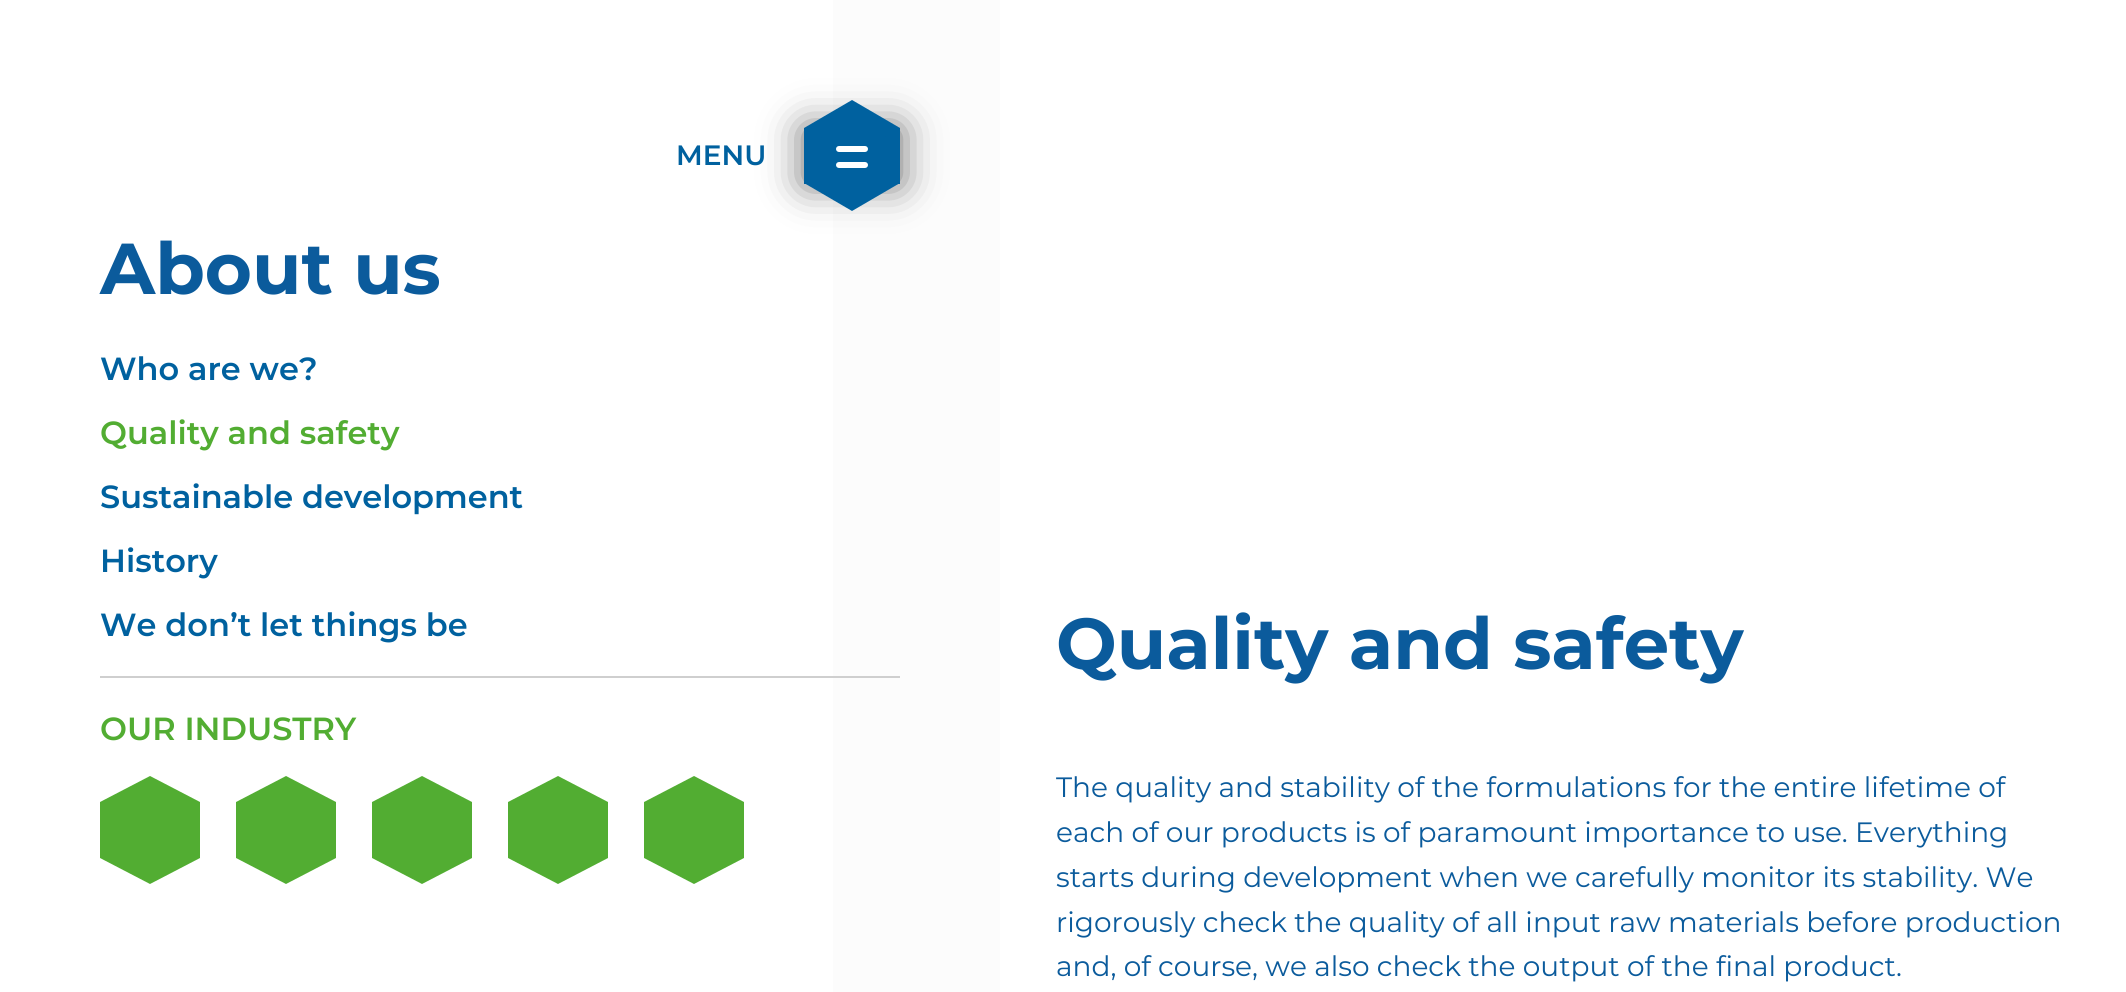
#include <cairo.h>
#include <math.h>
#include <stddef.h>

static cairo_t *ctx;

static void use_color(int r, int g, int b) {
    cairo_set_source_rgb(ctx, r / 255.0, g / 255.0, b / 255.0);
}

static void round_rect(double x, double y, double w, double h, double r) {
    cairo_new_sub_path(ctx);
    cairo_arc(ctx, x + w - r, y + h - r, r, 0, M_PI / 2);
    cairo_arc(ctx, x + r, y + h - r, r, M_PI / 2, M_PI);
    cairo_arc(ctx, x + r, y + r, r, M_PI, 1.5 * M_PI);
    cairo_arc(ctx, x + w - r, y + r, r, 1.5 * M_PI, 2 * M_PI);
    cairo_close_path(ctx);
}

static void shadow(double x, double y, double w, double h, double r, double blur, double alpha) {
    cairo_push_group_with_content(ctx, CAIRO_CONTENT_ALPHA);
    cairo_set_operator(ctx, CAIRO_OPERATOR_SOURCE);
    for (int i = 15; i >= -15 && fmin(w, h) + blur * i / 3 > 0; i -= 2) {
        double e = blur * i / 6;
        cairo_set_source_rgba(ctx, 0, 0, 0, alpha * erfc((i - 1) / 8.5) / 2);
        round_rect(x - e, y - e, w + 2 * e, h + 2 * e, fmax(0, fmin(r + e + blur * .6, fmin(w, h) / 2 + e)));
        cairo_fill(ctx);
    }
    cairo_pattern_t *soft = cairo_pop_group(ctx);
    cairo_mask(ctx, soft);
    cairo_pattern_destroy(soft);
}

int main(void) {
    cairo_surface_t *surface = cairo_image_surface_create(CAIRO_FORMAT_RGB24, 2126, 992);
    ctx = cairo_create(surface);
    cairo_font_options_t *options = cairo_font_options_create();
    cairo_font_options_set_hint_metrics(options, CAIRO_HINT_METRICS_OFF);
    cairo_font_options_set_hint_style(options, CAIRO_HINT_STYLE_NONE);
    cairo_set_font_options(ctx, options);
    cairo_set_miter_limit(ctx, 4);
    cairo_pattern_t *gradient;
    use_color(255, 255, 255);
    cairo_paint(ctx);
    gradient = cairo_pattern_create_linear(0, 496, 1000, 496);
    cairo_pattern_add_color_stop_rgba(gradient, 0, 1, 1, 1, 1);
    cairo_pattern_add_color_stop_rgba(gradient, 1, 0.988, 0.988, 0.988, 1);
    cairo_set_source(ctx, gradient);
    cairo_pattern_destroy(gradient);
    cairo_rectangle(ctx, 833, 0, 167, 992);
    cairo_fill(ctx);
    use_color(0, 0, 0);
    shadow(804, 128, 96, 56, 0, 20, 0.6);
    use_color(0, 97, 159);
    cairo_rectangle(ctx, 804, 128, 96, 56);
    cairo_fill(ctx);
    cairo_select_font_face(ctx, "Montserrat SemiBold", CAIRO_FONT_SLANT_NORMAL, CAIRO_FONT_WEIGHT_NORMAL);
    cairo_set_font_size(ctx, 28);
    cairo_move_to(ctx, 676, 165);
    cairo_show_text(ctx, "MENU");
    cairo_new_path(ctx);
    cairo_move_to(ctx, 804, 128);
    cairo_line_to(ctx, 852, 100);
    cairo_line_to(ctx, 900, 128);
    cairo_line_to(ctx, 852, 155);
    cairo_close_path(ctx);
    cairo_fill(ctx);
    use_color(255, 255, 255);
    round_rect(836, 146, 32, 6, 3);
    cairo_fill(ctx);
    use_color(0, 97, 159);
    cairo_new_path(ctx);
    cairo_move_to(ctx, 804, 183);
    cairo_line_to(ctx, 852, 155);
    cairo_line_to(ctx, 900, 183);
    cairo_line_to(ctx, 852, 211);
    cairo_close_path(ctx);
    cairo_fill(ctx);
    use_color(255, 255, 255);
    round_rect(836, 162, 32, 6, 3);
    cairo_fill(ctx);
    cairo_select_font_face(ctx, "Montserrat", CAIRO_FONT_SLANT_NORMAL, CAIRO_FONT_WEIGHT_BOLD);
    cairo_set_font_size(ctx, 72);
    use_color(11, 91, 156);
    cairo_move_to(ctx, 100, 294);
    cairo_show_text(ctx, "About us");
    cairo_select_font_face(ctx, "Montserrat SemiBold", CAIRO_FONT_SLANT_NORMAL, CAIRO_FONT_WEIGHT_NORMAL);
    cairo_set_font_size(ctx, 32);
    use_color(0, 97, 159);
    cairo_move_to(ctx, 100, 380);
    cairo_show_text(ctx, "Who are we?");
    use_color(82, 173, 50);
    cairo_move_to(ctx, 100, 444);
    cairo_show_text(ctx, "Quality and safety");
    use_color(0, 97, 159);
    cairo_move_to(ctx, 100, 508);
    cairo_show_text(ctx, "Sustainable development");
    cairo_move_to(ctx, 100, 572);
    cairo_show_text(ctx, "History");
    cairo_move_to(ctx, 100, 636);
    cairo_show_text(ctx, "We don’t let things be");
    use_color(207, 207, 207);
    cairo_rectangle(ctx, 100, 676, 800, 2);
    cairo_fill(ctx);
    use_color(82, 173, 50);
    cairo_move_to(ctx, 100, 740);
    cairo_show_text(ctx, "OUR INDUSTRY");
    cairo_rectangle(ctx, 100, 802, 100, 56);
    cairo_fill(ctx);
    cairo_new_path(ctx);
    cairo_move_to(ctx, 200, 802);
    cairo_line_to(ctx, 100, 802);
    cairo_line_to(ctx, 150, 776);
    cairo_close_path(ctx);
    cairo_fill(ctx);
    cairo_new_path(ctx);
    cairo_move_to(ctx, 100, 858);
    cairo_line_to(ctx, 200, 858);
    cairo_line_to(ctx, 150, 884);
    cairo_close_path(ctx);
    cairo_fill(ctx);
    cairo_rectangle(ctx, 236, 802, 100, 56);
    cairo_fill(ctx);
    cairo_new_path(ctx);
    cairo_move_to(ctx, 336, 802);
    cairo_line_to(ctx, 236, 802);
    cairo_line_to(ctx, 286, 776);
    cairo_close_path(ctx);
    cairo_fill(ctx);
    cairo_new_path(ctx);
    cairo_move_to(ctx, 236, 858);
    cairo_line_to(ctx, 336, 858);
    cairo_line_to(ctx, 286, 884);
    cairo_close_path(ctx);
    cairo_fill(ctx);
    cairo_rectangle(ctx, 372, 802, 100, 56);
    cairo_fill(ctx);
    cairo_new_path(ctx);
    cairo_move_to(ctx, 472, 802);
    cairo_line_to(ctx, 372, 802);
    cairo_line_to(ctx, 422, 776);
    cairo_close_path(ctx);
    cairo_fill(ctx);
    cairo_new_path(ctx);
    cairo_move_to(ctx, 372, 858);
    cairo_line_to(ctx, 472, 858);
    cairo_line_to(ctx, 422, 884);
    cairo_close_path(ctx);
    cairo_fill(ctx);
    cairo_rectangle(ctx, 508, 802, 100, 56);
    cairo_fill(ctx);
    cairo_new_path(ctx);
    cairo_move_to(ctx, 608, 802);
    cairo_line_to(ctx, 508, 802);
    cairo_line_to(ctx, 558, 776);
    cairo_close_path(ctx);
    cairo_fill(ctx);
    cairo_new_path(ctx);
    cairo_move_to(ctx, 508, 858);
    cairo_line_to(ctx, 608, 858);
    cairo_line_to(ctx, 558, 884);
    cairo_close_path(ctx);
    cairo_fill(ctx);
    cairo_rectangle(ctx, 644, 802, 100, 56);
    cairo_fill(ctx);
    cairo_new_path(ctx);
    cairo_move_to(ctx, 744, 802);
    cairo_line_to(ctx, 644, 802);
    cairo_line_to(ctx, 694, 776);
    cairo_close_path(ctx);
    cairo_fill(ctx);
    cairo_new_path(ctx);
    cairo_move_to(ctx, 644, 858);
    cairo_line_to(ctx, 744, 858);
    cairo_line_to(ctx, 694, 884);
    cairo_close_path(ctx);
    cairo_fill(ctx);
    cairo_select_font_face(ctx, "Montserrat", CAIRO_FONT_SLANT_NORMAL, CAIRO_FONT_WEIGHT_BOLD);
    cairo_set_font_size(ctx, 72);
    use_color(11, 91, 156);
    cairo_move_to(ctx, 1056, 669);
    cairo_show_text(ctx, "Quality and safety");
    cairo_select_font_face(ctx, "Montserrat", CAIRO_FONT_SLANT_NORMAL, CAIRO_FONT_WEIGHT_NORMAL);
    cairo_set_font_size(ctx, 28);
    cairo_move_to(ctx, 1056, 797);
    cairo_show_text(ctx, "The quality and stability of the formulations for the entire lifetime of");
    cairo_move_to(ctx, 1056, 842);
    cairo_show_text(ctx, "each of our products is of paramount importance to use. Everything");
    cairo_move_to(ctx, 1056, 887);
    cairo_show_text(ctx, "starts during development when we carefully monitor its stability. We");
    cairo_move_to(ctx, 1056, 932);
    cairo_show_text(ctx, "rigorously check the quality of all input raw materials before production");
    cairo_move_to(ctx, 1056, 976);
    cairo_show_text(ctx, "and, of course, we also check the output of the final product.");
    cairo_surface_write_to_png(surface, "result.png");
    cairo_font_options_destroy(options);
    cairo_destroy(ctx);
    cairo_surface_destroy(surface);
    return 0;
}
